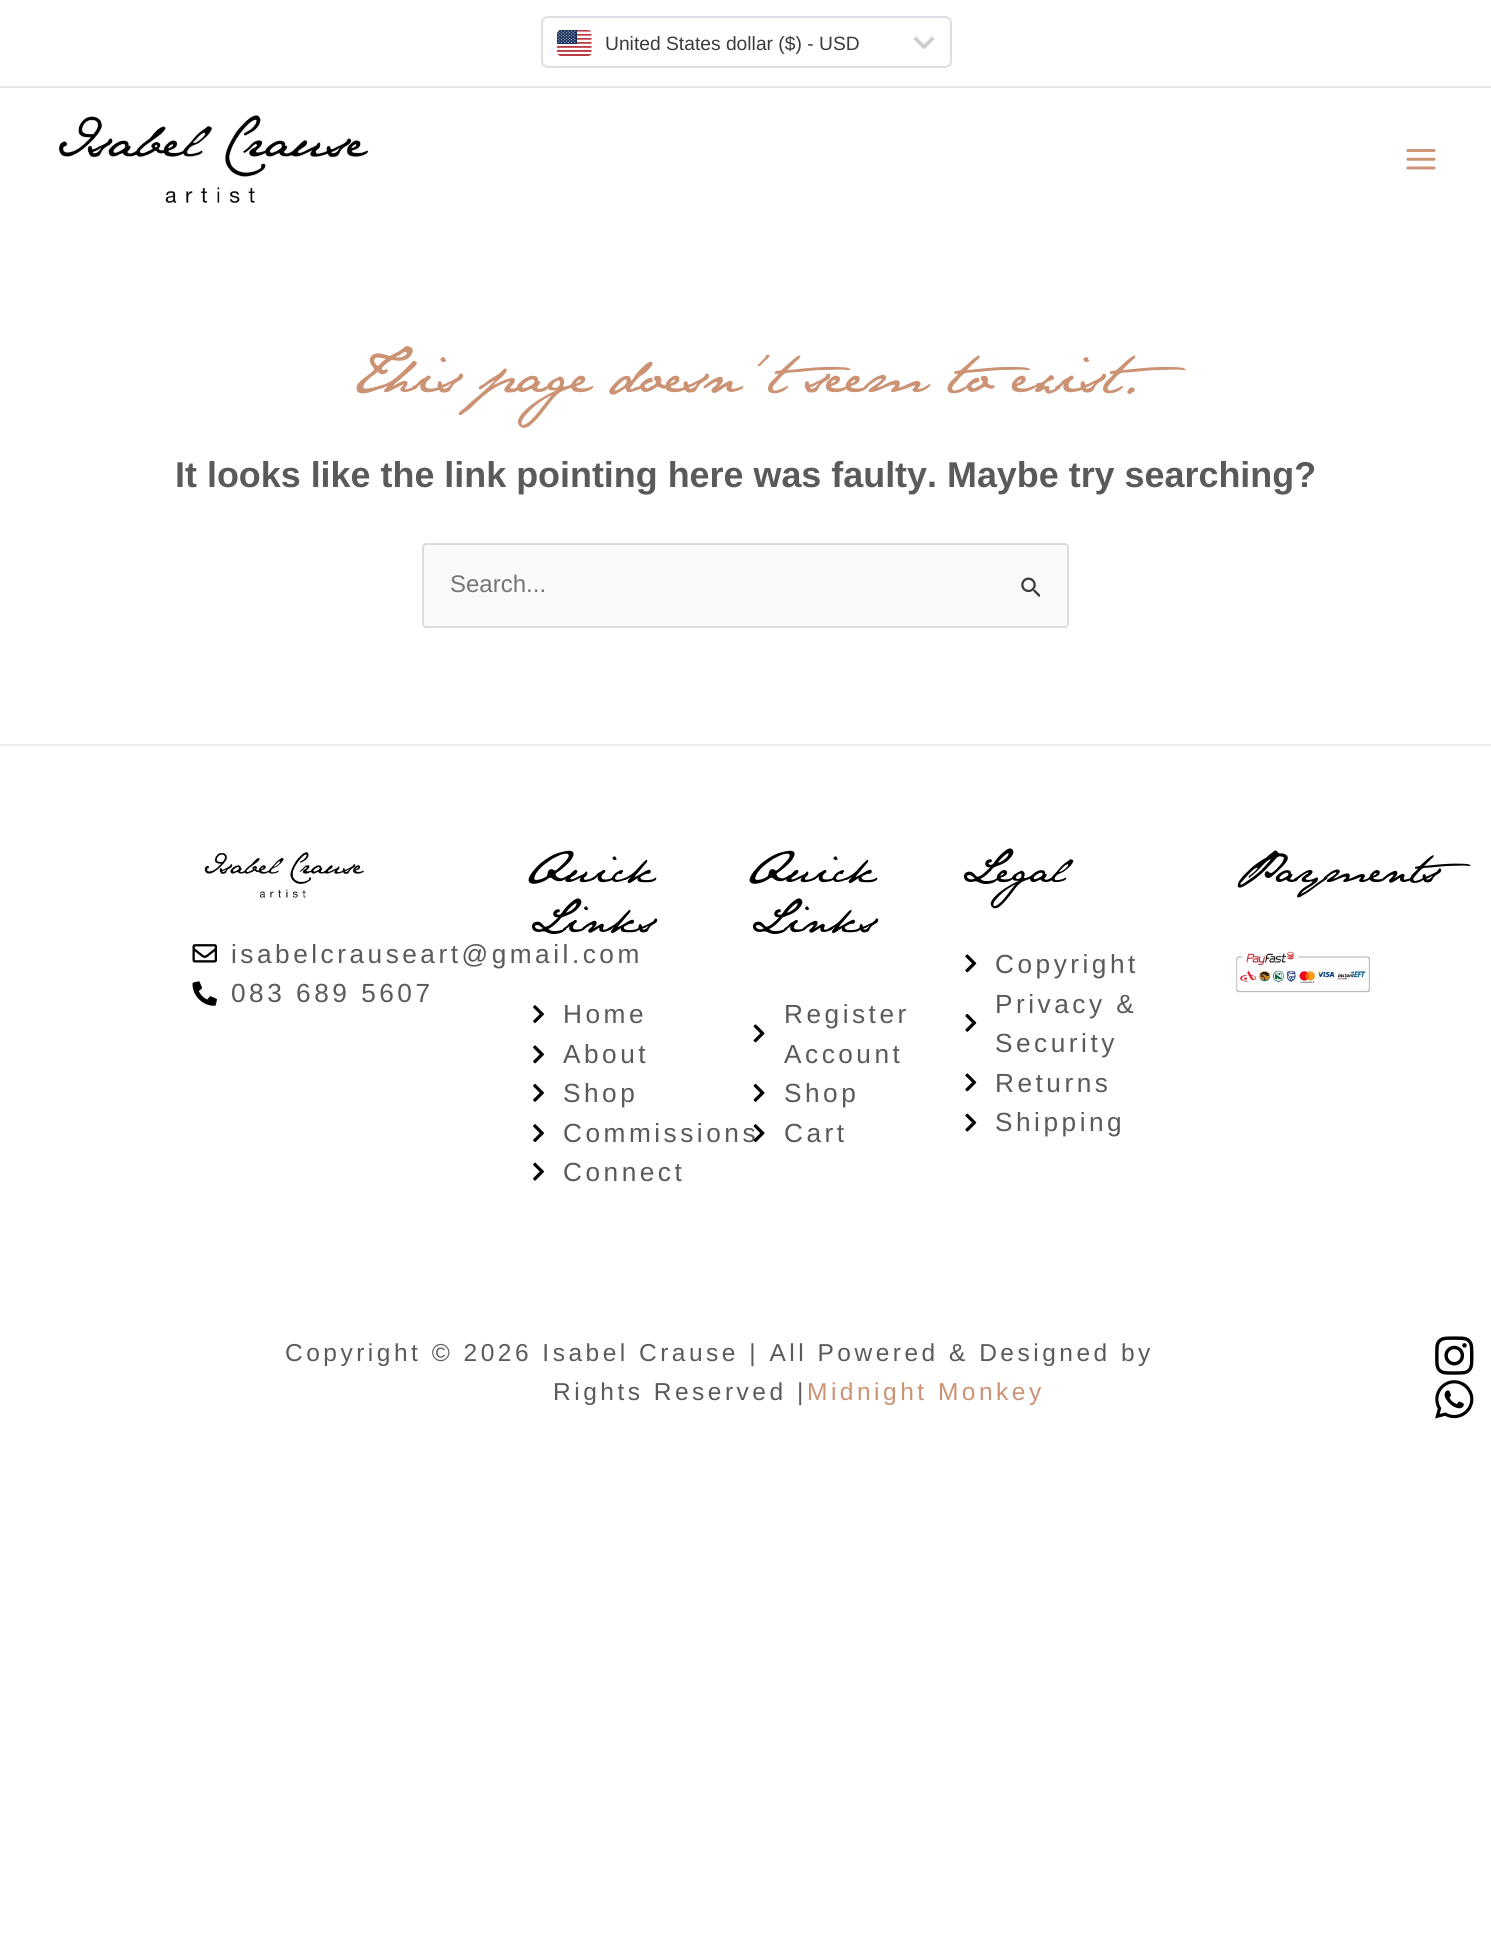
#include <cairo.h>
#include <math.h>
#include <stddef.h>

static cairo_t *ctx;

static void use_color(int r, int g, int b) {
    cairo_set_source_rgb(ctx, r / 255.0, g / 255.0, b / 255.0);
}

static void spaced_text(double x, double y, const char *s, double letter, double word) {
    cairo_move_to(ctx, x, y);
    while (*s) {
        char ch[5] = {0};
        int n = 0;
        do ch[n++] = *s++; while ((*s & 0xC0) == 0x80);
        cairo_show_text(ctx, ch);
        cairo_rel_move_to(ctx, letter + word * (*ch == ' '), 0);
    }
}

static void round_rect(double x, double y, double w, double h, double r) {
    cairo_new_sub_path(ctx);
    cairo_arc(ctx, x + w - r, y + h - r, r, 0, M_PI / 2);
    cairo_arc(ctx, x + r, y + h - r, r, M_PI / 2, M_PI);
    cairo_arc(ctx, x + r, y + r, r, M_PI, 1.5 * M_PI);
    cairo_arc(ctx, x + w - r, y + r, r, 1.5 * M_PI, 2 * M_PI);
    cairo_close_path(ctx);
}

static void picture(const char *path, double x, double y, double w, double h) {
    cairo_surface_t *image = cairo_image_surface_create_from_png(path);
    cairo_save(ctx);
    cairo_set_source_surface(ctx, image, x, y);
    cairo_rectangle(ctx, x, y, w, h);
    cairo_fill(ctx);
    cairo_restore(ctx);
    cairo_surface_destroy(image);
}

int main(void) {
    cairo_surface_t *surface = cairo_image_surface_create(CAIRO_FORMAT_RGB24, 1491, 1934);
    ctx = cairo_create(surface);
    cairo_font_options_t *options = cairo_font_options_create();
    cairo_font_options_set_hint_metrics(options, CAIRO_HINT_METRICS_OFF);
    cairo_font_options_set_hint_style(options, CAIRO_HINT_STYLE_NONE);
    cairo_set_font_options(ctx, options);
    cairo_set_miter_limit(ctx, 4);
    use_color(255, 255, 255);
    cairo_paint(ctx);
    use_color(229, 229, 229);
    cairo_rectangle(ctx, 0, 86, 1491, 2);
    cairo_fill(ctx);
    round_rect(542, 17, 409, 50, 6);
    use_color(220, 223, 230);
    cairo_stroke(ctx);
    picture("img1.png", 557, 30, 35, 26);
    cairo_select_font_face(ctx, "Liberation Sans", CAIRO_FONT_SLANT_NORMAL, CAIRO_FONT_WEIGHT_NORMAL);
    cairo_set_font_size(ctx, 19.25);
    use_color(59, 59, 59);
    cairo_move_to(ctx, 605, 50);
    cairo_show_text(ctx, "United States dollar ($) - USD");
    use_color(204, 204, 204);
    cairo_new_path(ctx);
    cairo_move_to(ctx, 913.5, 39);
    cairo_line_to(ctx, 916, 36.5);
    cairo_line_to(ctx, 926, 46.5);
    cairo_line_to(ctx, 923.5, 49);
    cairo_close_path(ctx);
    cairo_fill(ctx);
    cairo_new_path(ctx);
    cairo_move_to(ctx, 932, 36.5);
    cairo_line_to(ctx, 934.5, 39);
    cairo_line_to(ctx, 924.5, 49);
    cairo_line_to(ctx, 922, 46.5);
    cairo_close_path(ctx);
    cairo_fill(ctx);
    picture("img2.png", 58, 115, 311, 88);
    picture("img3.png", 1406, 149, 30, 21);
    cairo_select_font_face(ctx, "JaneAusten", CAIRO_FONT_SLANT_NORMAL, CAIRO_FONT_WEIGHT_NORMAL);
    cairo_set_font_size(ctx, 52.5);
    use_color(203, 146, 116);
    cairo_move_to(ctx, 351, 392);
    cairo_show_text(ctx, "This page doesn't seem to exist.");
    cairo_select_font_face(ctx, "Liberation Sans", CAIRO_FONT_SLANT_NORMAL, CAIRO_FONT_WEIGHT_BOLD);
    cairo_set_font_size(ctx, 35.9);
    use_color(90, 90, 90);
    cairo_move_to(ctx, 175, 487);
    cairo_show_text(ctx, "It looks like the link pointing here was faulty. Maybe try searching?");
    use_color(250, 250, 250);
    round_rect(423, 544, 645, 83, 3);
    cairo_fill_preserve(ctx);
    use_color(221, 221, 221);
    cairo_stroke(ctx);
    cairo_select_font_face(ctx, "Liberation Sans", CAIRO_FONT_SLANT_NORMAL, CAIRO_FONT_WEIGHT_NORMAL);
    cairo_set_font_size(ctx, 24);
    use_color(117, 117, 117);
    cairo_move_to(ctx, 450, 592);
    cairo_show_text(ctx, "Search...");
    picture("img4.png", 1021, 577, 19, 20);
    use_color(236, 236, 236);
    cairo_rectangle(ctx, 0, 744, 1491, 2);
    cairo_fill(ctx);
    cairo_select_font_face(ctx, "JaneAusten", CAIRO_FONT_SLANT_NORMAL, CAIRO_FONT_WEIGHT_NORMAL);
    cairo_set_font_size(ctx, 38.5);
    use_color(0, 0, 0);
    cairo_move_to(ctx, 528, 882);
    cairo_show_text(ctx, "Quick");
    cairo_move_to(ctx, 528, 932);
    cairo_show_text(ctx, "Links");
    picture("img5.png", 533, 1005, 11, 18);
    cairo_select_font_face(ctx, "Liberation Sans", CAIRO_FONT_SLANT_NORMAL, CAIRO_FONT_WEIGHT_NORMAL);
    cairo_set_font_size(ctx, 26.25);
    use_color(90, 90, 90);
    spaced_text(563, 1023, "Home", 3.5, 0);
    picture("img6.png", 533, 1045, 11, 19);
    spaced_text(563, 1063, "About", 3.5, 0);
    picture("img7.png", 533, 1084, 11, 18);
    spaced_text(563, 1102, "Shop", 3.5, 0);
    picture("img5.png", 533, 1124, 11, 18);
    spaced_text(563, 1142, "Commissions", 3.5, 0);
    picture("img8.png", 533, 1162, 11, 19);
    spaced_text(563, 1181, "Connect", 3.5, 0);
    cairo_select_font_face(ctx, "JaneAusten", CAIRO_FONT_SLANT_NORMAL, CAIRO_FONT_WEIGHT_NORMAL);
    cairo_set_font_size(ctx, 38.5);
    use_color(0, 0, 0);
    cairo_move_to(ctx, 749, 882);
    cairo_show_text(ctx, "Quick");
    cairo_move_to(ctx, 749, 932);
    cairo_show_text(ctx, "Links");
    picture("img9.png", 753, 1024, 12, 19);
    cairo_select_font_face(ctx, "Liberation Sans", CAIRO_FONT_SLANT_NORMAL, CAIRO_FONT_WEIGHT_NORMAL);
    cairo_set_font_size(ctx, 26.25);
    use_color(90, 90, 90);
    spaced_text(784, 1023, "Register", 3.5, 0);
    spaced_text(784, 1063, "Account", 3.5, 0);
    picture("img10.png", 753, 1083, 12, 19);
    spaced_text(784, 1102, "Shop", 3.5, 0);
    picture("img11.png", 753, 1124, 12, 19);
    spaced_text(784, 1142, "Cart", 3.5, 0);
    cairo_select_font_face(ctx, "JaneAusten", CAIRO_FONT_SLANT_NORMAL, CAIRO_FONT_WEIGHT_NORMAL);
    cairo_set_font_size(ctx, 38.5);
    use_color(0, 0, 0);
    cairo_move_to(ctx, 960, 882);
    cairo_show_text(ctx, "Legal");
    picture("img12.png", 965, 954, 12, 19);
    cairo_select_font_face(ctx, "Liberation Sans", CAIRO_FONT_SLANT_NORMAL, CAIRO_FONT_WEIGHT_NORMAL);
    cairo_set_font_size(ctx, 26.25);
    use_color(90, 90, 90);
    spaced_text(995, 973, "Copyright", 3.5, 0);
    picture("img13.png", 965, 1013, 12, 19);
    spaced_text(995, 1013, "Privacy &", 3.5, 0);
    spaced_text(995, 1052, "Security", 3.5, 0);
    picture("img12.png", 965, 1073, 12, 19);
    spaced_text(995, 1092, "Returns", 3.5, 0);
    picture("img14.png", 965, 1113, 12, 19);
    spaced_text(995, 1131, "Shipping", 3.5, 0);
    cairo_select_font_face(ctx, "JaneAusten", CAIRO_FONT_SLANT_NORMAL, CAIRO_FONT_WEIGHT_NORMAL);
    cairo_set_font_size(ctx, 38.5);
    use_color(0, 0, 0);
    cairo_move_to(ctx, 1235, 882);
    cairo_show_text(ctx, "Payments");
    picture("img15.png", 1236, 950, 134, 43);
    picture("img16.png", 204, 852, 160, 46);
    picture("img17.png", 192, 944, 25, 19);
    cairo_select_font_face(ctx, "Liberation Sans", CAIRO_FONT_SLANT_NORMAL, CAIRO_FONT_WEIGHT_NORMAL);
    cairo_set_font_size(ctx, 26.25);
    use_color(90, 90, 90);
    spaced_text(231, 963, "isabelcrauseart@gmail.com", 3.5, 0);
    picture("img18.png", 192, 981, 25, 25);
    spaced_text(231, 1002, "083 689 5607", 3.5, 0);
    cairo_set_font_size(ctx, 24.5);
    spaced_text(285, 1361, "Copyright © 2026 Isabel Crause | All Powered & Designed by", 3.5, 0);
    spaced_text(553, 1400, "Rights Reserved |", 3.5, 0);
    picture("img19.png", 1435, 1336, 39, 39);
    picture("img20.png", 1435, 1380, 39, 39);
    use_color(203, 146, 116);
    spaced_text(807, 1400, "Midnight Monkey", 3.5, 0);
    cairo_surface_write_to_png(surface, "result.png");
    cairo_font_options_destroy(options);
    cairo_destroy(ctx);
    cairo_surface_destroy(surface);
    return 0;
}
